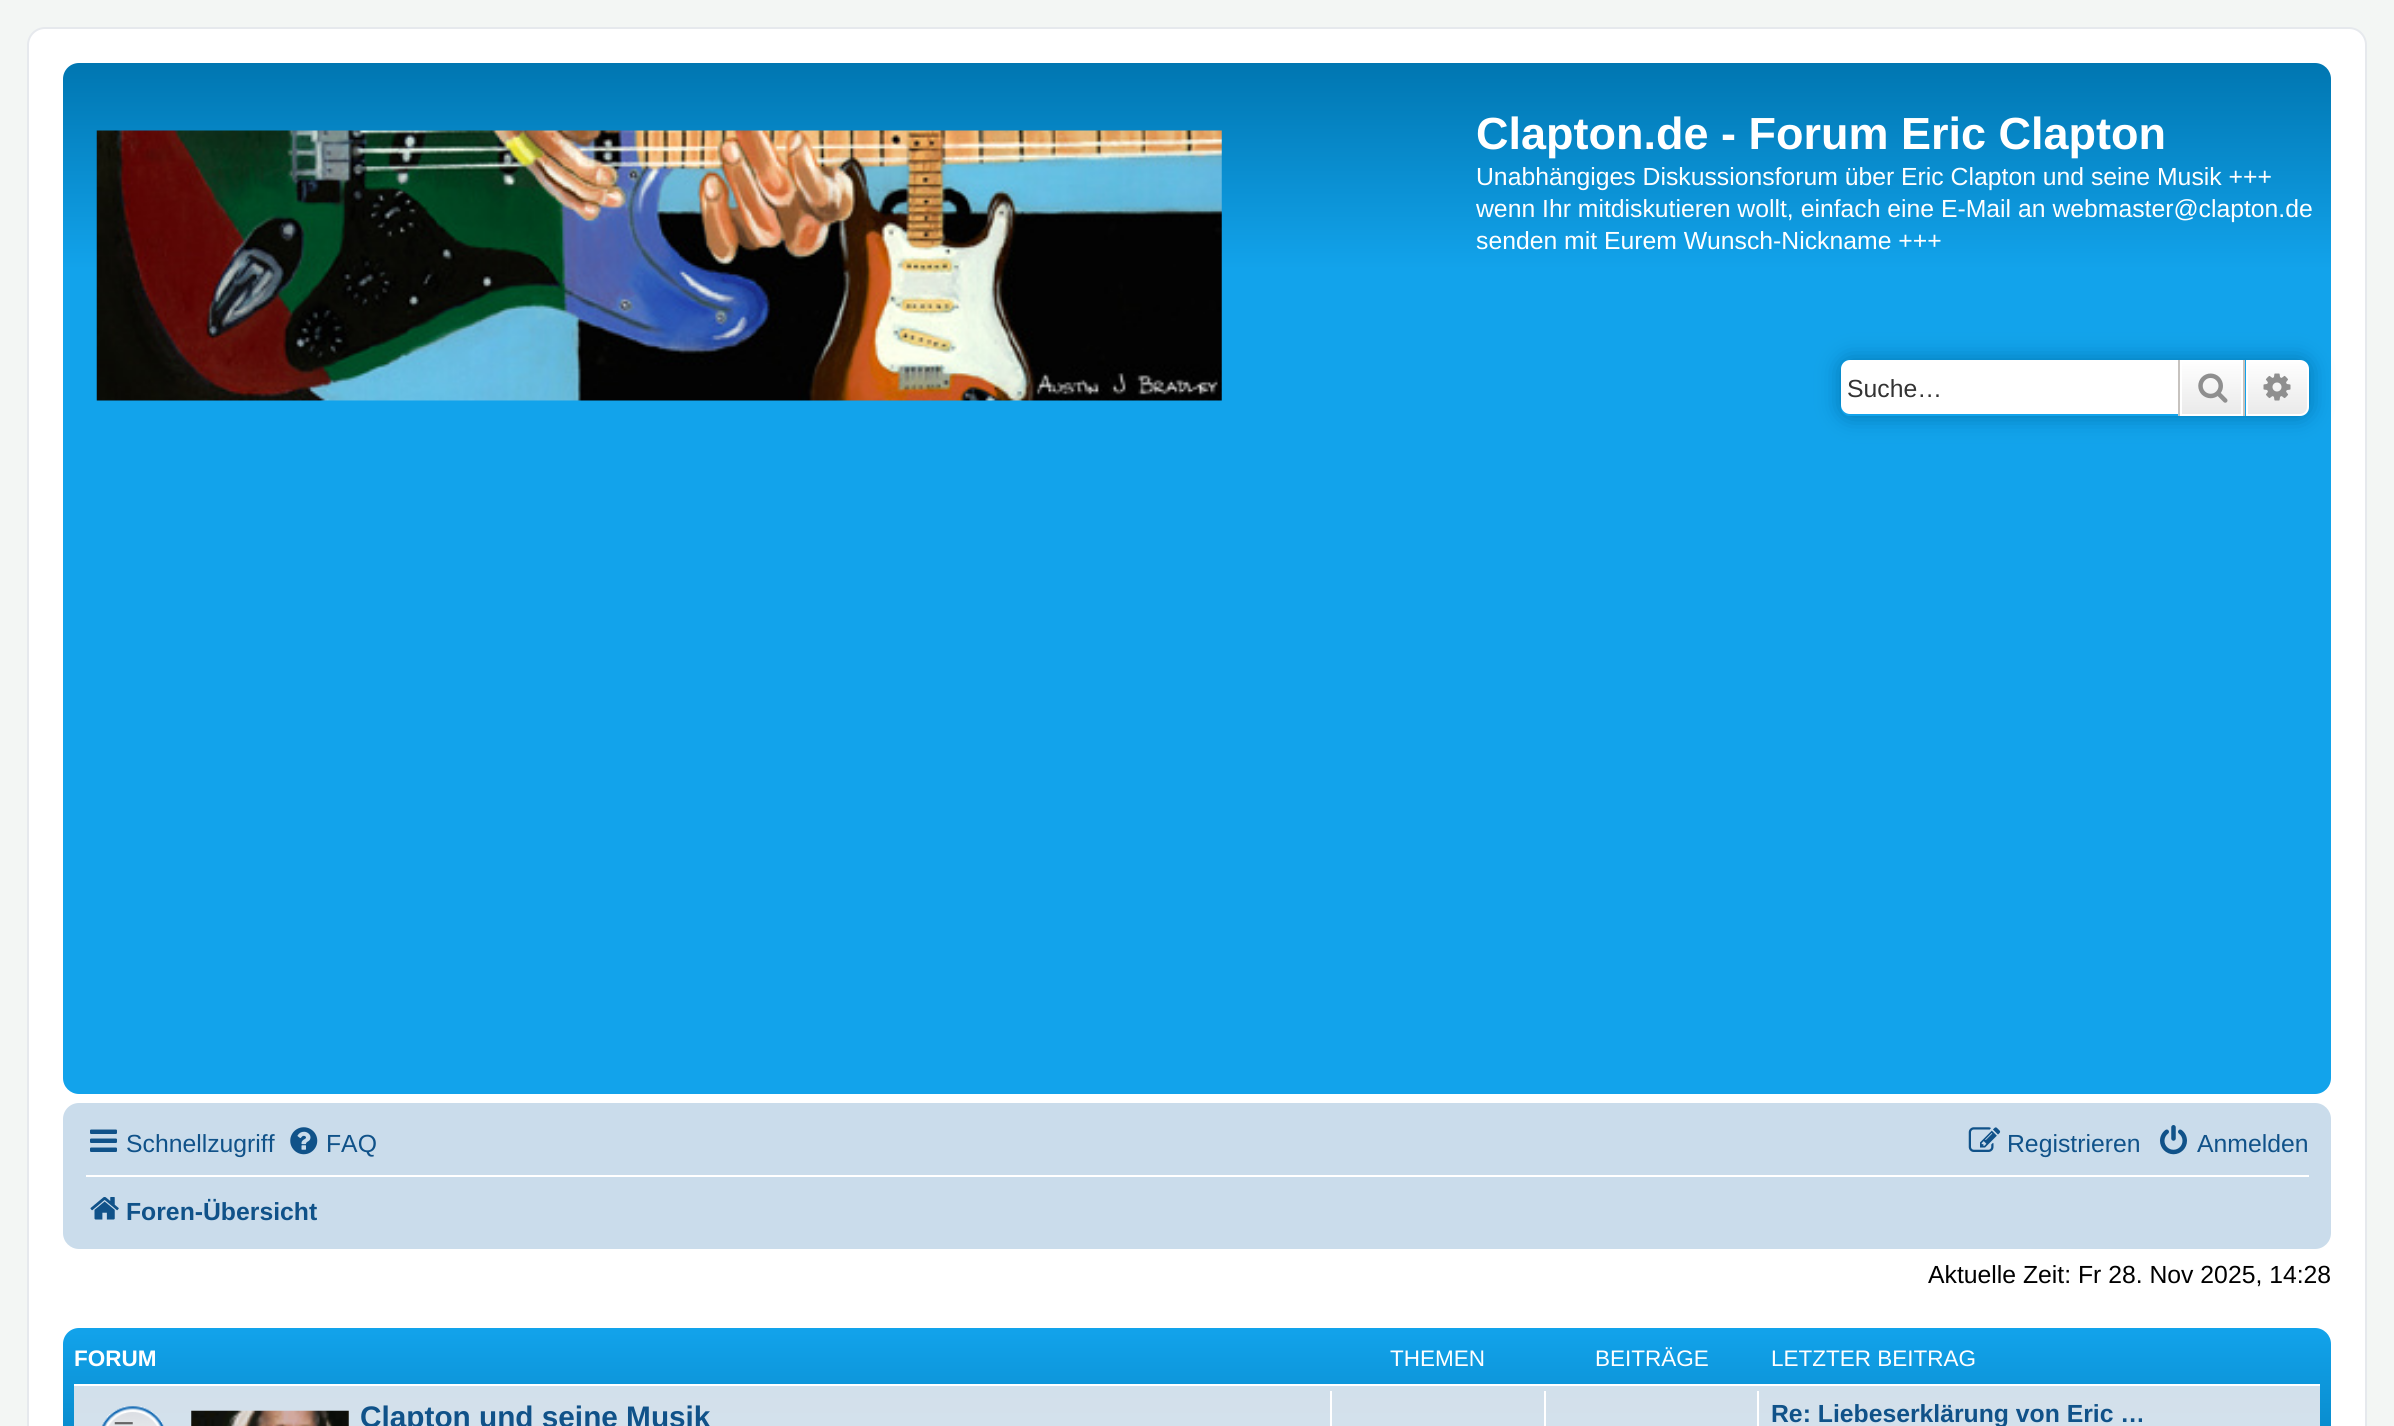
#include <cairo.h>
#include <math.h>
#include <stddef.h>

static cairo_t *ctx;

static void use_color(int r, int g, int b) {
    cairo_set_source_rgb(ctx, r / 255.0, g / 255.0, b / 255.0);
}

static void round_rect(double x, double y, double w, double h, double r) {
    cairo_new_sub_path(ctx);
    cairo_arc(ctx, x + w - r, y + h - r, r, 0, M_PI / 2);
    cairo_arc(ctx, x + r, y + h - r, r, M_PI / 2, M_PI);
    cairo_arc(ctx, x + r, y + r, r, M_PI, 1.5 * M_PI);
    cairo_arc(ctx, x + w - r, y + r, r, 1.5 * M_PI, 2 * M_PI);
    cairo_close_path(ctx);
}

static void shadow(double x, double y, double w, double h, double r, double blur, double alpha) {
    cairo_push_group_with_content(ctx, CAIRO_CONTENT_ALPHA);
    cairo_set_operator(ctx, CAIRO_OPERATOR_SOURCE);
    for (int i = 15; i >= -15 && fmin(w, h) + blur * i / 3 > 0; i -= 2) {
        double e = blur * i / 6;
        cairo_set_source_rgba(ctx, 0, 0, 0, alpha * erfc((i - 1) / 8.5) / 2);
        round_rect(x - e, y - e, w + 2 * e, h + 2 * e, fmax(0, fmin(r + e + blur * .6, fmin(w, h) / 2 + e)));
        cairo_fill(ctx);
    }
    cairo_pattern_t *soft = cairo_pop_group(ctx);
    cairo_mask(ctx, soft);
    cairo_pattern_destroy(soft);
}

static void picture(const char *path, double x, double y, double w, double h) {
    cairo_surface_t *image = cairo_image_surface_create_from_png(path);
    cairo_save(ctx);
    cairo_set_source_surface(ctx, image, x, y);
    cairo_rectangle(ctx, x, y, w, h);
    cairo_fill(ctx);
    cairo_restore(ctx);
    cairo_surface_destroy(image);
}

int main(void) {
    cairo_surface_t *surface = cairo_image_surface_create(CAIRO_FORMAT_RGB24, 2394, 1426);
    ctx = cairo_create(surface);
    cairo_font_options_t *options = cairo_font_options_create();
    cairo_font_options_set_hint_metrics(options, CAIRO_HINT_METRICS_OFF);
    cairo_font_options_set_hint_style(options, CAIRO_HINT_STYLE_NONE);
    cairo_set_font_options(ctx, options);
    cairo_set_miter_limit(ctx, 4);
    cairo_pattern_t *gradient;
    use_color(243, 246, 244);
    cairo_paint(ctx);
    use_color(255, 255, 255);
    round_rect(28, 28, 2338, 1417, 17);
    cairo_fill_preserve(ctx);
    use_color(230, 233, 237);
    cairo_stroke(ctx);
    gradient = cairo_pattern_create_linear(1197, 63, 1197, 1094);
    cairo_pattern_add_color_stop_rgba(gradient, 0, 0.416, 0.808, 1, 1);
    cairo_pattern_add_color_stop_rgba(gradient, 0, 0, 0.463, 0.694, 1);
    cairo_pattern_add_color_stop_rgba(gradient, 0.2, 0.071, 0.639, 0.922, 1);
    cairo_pattern_add_color_stop_rgba(gradient, 1, 0.071, 0.639, 0.922, 1);
    cairo_set_source(ctx, gradient);
    cairo_pattern_destroy(gradient);
    round_rect(63, 63, 2268, 1031, 16);
    cairo_fill(ctx);
    picture("img1.png", 96, 130, 1126, 271);
    cairo_select_font_face(ctx, "Liberation Sans", CAIRO_FONT_SLANT_NORMAL, CAIRO_FONT_WEIGHT_BOLD);
    cairo_set_font_size(ctx, 45);
    use_color(255, 255, 255);
    cairo_move_to(ctx, 1476, 149);
    cairo_show_text(ctx, "Clapton.de - Forum Eric Clapton");
    cairo_select_font_face(ctx, "Liberation Sans", CAIRO_FONT_SLANT_NORMAL, CAIRO_FONT_WEIGHT_NORMAL);
    cairo_set_font_size(ctx, 24.75);
    cairo_move_to(ctx, 1476, 185);
    cairo_show_text(ctx, "Unabhängiges Diskussionsforum über Eric Clapton und seine Musik +++");
    cairo_move_to(ctx, 1476, 217);
    cairo_show_text(ctx, "wenn Ihr mitdiskutieren wollt, einfach eine E-Mail an webmaster@clapton.de");
    cairo_move_to(ctx, 1476, 249);
    cairo_show_text(ctx, "senden mit Eurem Wunsch-Nickname +++");
    cairo_save(ctx);
    cairo_set_fill_rule(ctx, CAIRO_FILL_RULE_EVEN_ODD);
    cairo_new_path(ctx);
    cairo_move_to(ctx, 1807, 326);
    cairo_line_to(ctx, 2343, 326);
    cairo_line_to(ctx, 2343, 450);
    cairo_line_to(ctx, 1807, 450);
    cairo_close_path(ctx);
    cairo_move_to(ctx, 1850, 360);
    cairo_line_to(ctx, 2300, 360);
    cairo_curve_to(ctx, 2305, 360, 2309, 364, 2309, 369);
    cairo_line_to(ctx, 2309, 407);
    cairo_curve_to(ctx, 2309, 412, 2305, 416, 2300, 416);
    cairo_line_to(ctx, 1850, 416);
    cairo_curve_to(ctx, 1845, 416, 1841, 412, 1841, 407);
    cairo_line_to(ctx, 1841, 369);
    cairo_curve_to(ctx, 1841, 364, 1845, 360, 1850, 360);
    cairo_close_path(ctx);
    cairo_clip(ctx);
    use_color(0, 117, 176);
    shadow(1841, 360, 468, 56, 9, 11, 1);
    cairo_restore(ctx);
    cairo_new_path(ctx);
    cairo_move_to(ctx, 1850, 360);
    cairo_line_to(ctx, 2178, 360);
    cairo_line_to(ctx, 2178, 414);
    cairo_line_to(ctx, 1850, 414);
    cairo_curve_to(ctx, 1845, 414, 1841, 410, 1841, 405);
    cairo_line_to(ctx, 1841, 369);
    cairo_curve_to(ctx, 1841, 364, 1845, 360, 1850, 360);
    cairo_close_path(ctx);
    cairo_fill(ctx);
    use_color(51, 51, 51);
    cairo_move_to(ctx, 1847, 397);
    cairo_show_text(ctx, "Suche…");
    gradient = cairo_pattern_create_linear(2212, 360, 2212, 416);
    cairo_pattern_add_color_stop_rgba(gradient, 0, 1, 1, 1, 1);
    cairo_pattern_add_color_stop_rgba(gradient, 1, 0.914, 0.914, 0.914, 1);
    cairo_set_source(ctx, gradient);
    cairo_pattern_destroy(gradient);
    cairo_rectangle(ctx, 2182, 362, 59, 52);
    cairo_fill(ctx);
    cairo_rectangle(ctx, 2181, 361, 61, 54);
    use_color(255, 255, 255);
    cairo_stroke(ctx);
    use_color(199, 195, 191);
    cairo_rectangle(ctx, 2243, 360, 2, 56);
    cairo_fill(ctx);
    cairo_rectangle(ctx, 2178, 360, 2, 56);
    cairo_fill(ctx);
    picture("img2.png", 2198, 373, 30, 30);
    gradient = cairo_pattern_create_linear(2277, 360, 2277, 416);
    cairo_pattern_add_color_stop_rgba(gradient, 0, 1, 1, 1, 1);
    cairo_pattern_add_color_stop_rgba(gradient, 1, 0.914, 0.914, 0.914, 1);
    cairo_set_source(ctx, gradient);
    cairo_pattern_destroy(gradient);
    cairo_new_path(ctx);
    cairo_move_to(ctx, 2247, 361);
    cairo_line_to(ctx, 2300, 361);
    cairo_curve_to(ctx, 2304.5, 361, 2308, 364.5, 2308, 369);
    cairo_line_to(ctx, 2308, 407);
    cairo_curve_to(ctx, 2308, 411.5, 2304.5, 415, 2300, 415);
    cairo_line_to(ctx, 2247, 415);
    cairo_close_path(ctx);
    cairo_fill_preserve(ctx);
    use_color(255, 255, 255);
    cairo_stroke(ctx);
    picture("img3.png", 2263, 373, 28, 28);
    use_color(202, 220, 235);
    round_rect(63, 1103, 2268, 146, 16);
    cairo_fill(ctx);
    picture("img4.png", 90, 1129, 27, 23);
    use_color(16, 82, 137);
    cairo_move_to(ctx, 126, 1152);
    cairo_show_text(ctx, "Schnellzugriff");
    picture("img5.png", 290, 1127, 28, 28);
    cairo_move_to(ctx, 326, 1152);
    cairo_show_text(ctx, "FAQ");
    picture("img6.png", 1968, 1127, 33, 25);
    cairo_move_to(ctx, 2007, 1152);
    cairo_show_text(ctx, "Registrieren");
    picture("img7.png", 2160, 1125, 27, 30);
    cairo_move_to(ctx, 2197, 1152);
    cairo_show_text(ctx, "Anmelden");
    use_color(255, 255, 255);
    cairo_rectangle(ctx, 86, 1175, 2223, 2);
    cairo_fill(ctx);
    picture("img8.png", 90, 1197, 29, 23);
    cairo_select_font_face(ctx, "Liberation Sans", CAIRO_FONT_SLANT_NORMAL, CAIRO_FONT_WEIGHT_BOLD);
    use_color(16, 82, 137);
    cairo_move_to(ctx, 126, 1220);
    cairo_show_text(ctx, "Foren-Übersicht");
    cairo_select_font_face(ctx, "Liberation Sans", CAIRO_FONT_SLANT_NORMAL, CAIRO_FONT_WEIGHT_NORMAL);
    use_color(0, 0, 0);
    cairo_move_to(ctx, 1928, 1283);
    cairo_show_text(ctx, "Aktuelle Zeit: Fr 28. Nov 2025, 14:28");
    gradient = cairo_pattern_create_linear(1197, 1328, 1197, 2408);
    cairo_pattern_add_color_stop_rgba(gradient, 0, 0.416, 0.808, 1, 1);
    cairo_pattern_add_color_stop_rgba(gradient, 0, 0.071, 0.639, 0.922, 1);
    cairo_pattern_add_color_stop_rgba(gradient, 0.19, 0, 0.463, 0.694, 1);
    cairo_pattern_add_color_stop_rgba(gradient, 1, 0, 0.463, 0.694, 1);
    cairo_set_source(ctx, gradient);
    cairo_pattern_destroy(gradient);
    round_rect(63, 1328, 2268, 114, 16);
    cairo_fill(ctx);
    cairo_select_font_face(ctx, "Liberation Sans", CAIRO_FONT_SLANT_NORMAL, CAIRO_FONT_WEIGHT_BOLD);
    cairo_set_font_size(ctx, 22.5);
    use_color(255, 255, 255);
    cairo_move_to(ctx, 74, 1366);
    cairo_show_text(ctx, "FORUM");
    cairo_select_font_face(ctx, "Liberation Sans", CAIRO_FONT_SLANT_NORMAL, CAIRO_FONT_WEIGHT_NORMAL);
    cairo_move_to(ctx, 1390, 1366);
    cairo_show_text(ctx, "THEMEN");
    cairo_move_to(ctx, 1595, 1366);
    cairo_show_text(ctx, "BEITRÄGE");
    cairo_move_to(ctx, 1771, 1366);
    cairo_show_text(ctx, "LETZTER BEITRAG");
    gradient = cairo_pattern_create_linear(1197, 1384, 1197, 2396);
    cairo_pattern_add_color_stop_rgba(gradient, 0, 0.824, 0.878, 0.922, 1);
    cairo_pattern_add_color_stop_rgba(gradient, 1, 0.933, 0.961, 0.976, 1);
    cairo_set_source(ctx, gradient);
    cairo_pattern_destroy(gradient);
    cairo_rectangle(ctx, 74, 1386, 2246, 40);
    cairo_fill(ctx);
    use_color(255, 255, 255);
    cairo_rectangle(ctx, 74, 1384, 2246, 2);
    cairo_fill(ctx);
    picture("img9.png", 101, 1406, 63, 20);
    picture("img10.png", 191, 1410, 158, 16);
    cairo_select_font_face(ctx, "Liberation Sans", CAIRO_FONT_SLANT_NORMAL, CAIRO_FONT_WEIGHT_BOLD);
    cairo_set_font_size(ctx, 29.75);
    use_color(16, 82, 137);
    cairo_move_to(ctx, 360, 1427);
    cairo_show_text(ctx, "Clapton und seine Musik");
    use_color(255, 255, 255);
    cairo_rectangle(ctx, 1330, 1391, 2, 35);
    cairo_fill(ctx);
    cairo_rectangle(ctx, 1544, 1391, 2, 35);
    cairo_fill(ctx);
    cairo_rectangle(ctx, 1757, 1391, 2, 35);
    cairo_fill(ctx);
    cairo_set_font_size(ctx, 24.75);
    use_color(16, 82, 137);
    cairo_move_to(ctx, 1771, 1422);
    cairo_show_text(ctx, "Re: Liebeserklärung von Eric …");
    cairo_surface_write_to_png(surface, "result.png");
    cairo_font_options_destroy(options);
    cairo_destroy(ctx);
    cairo_surface_destroy(surface);
    return 0;
}
